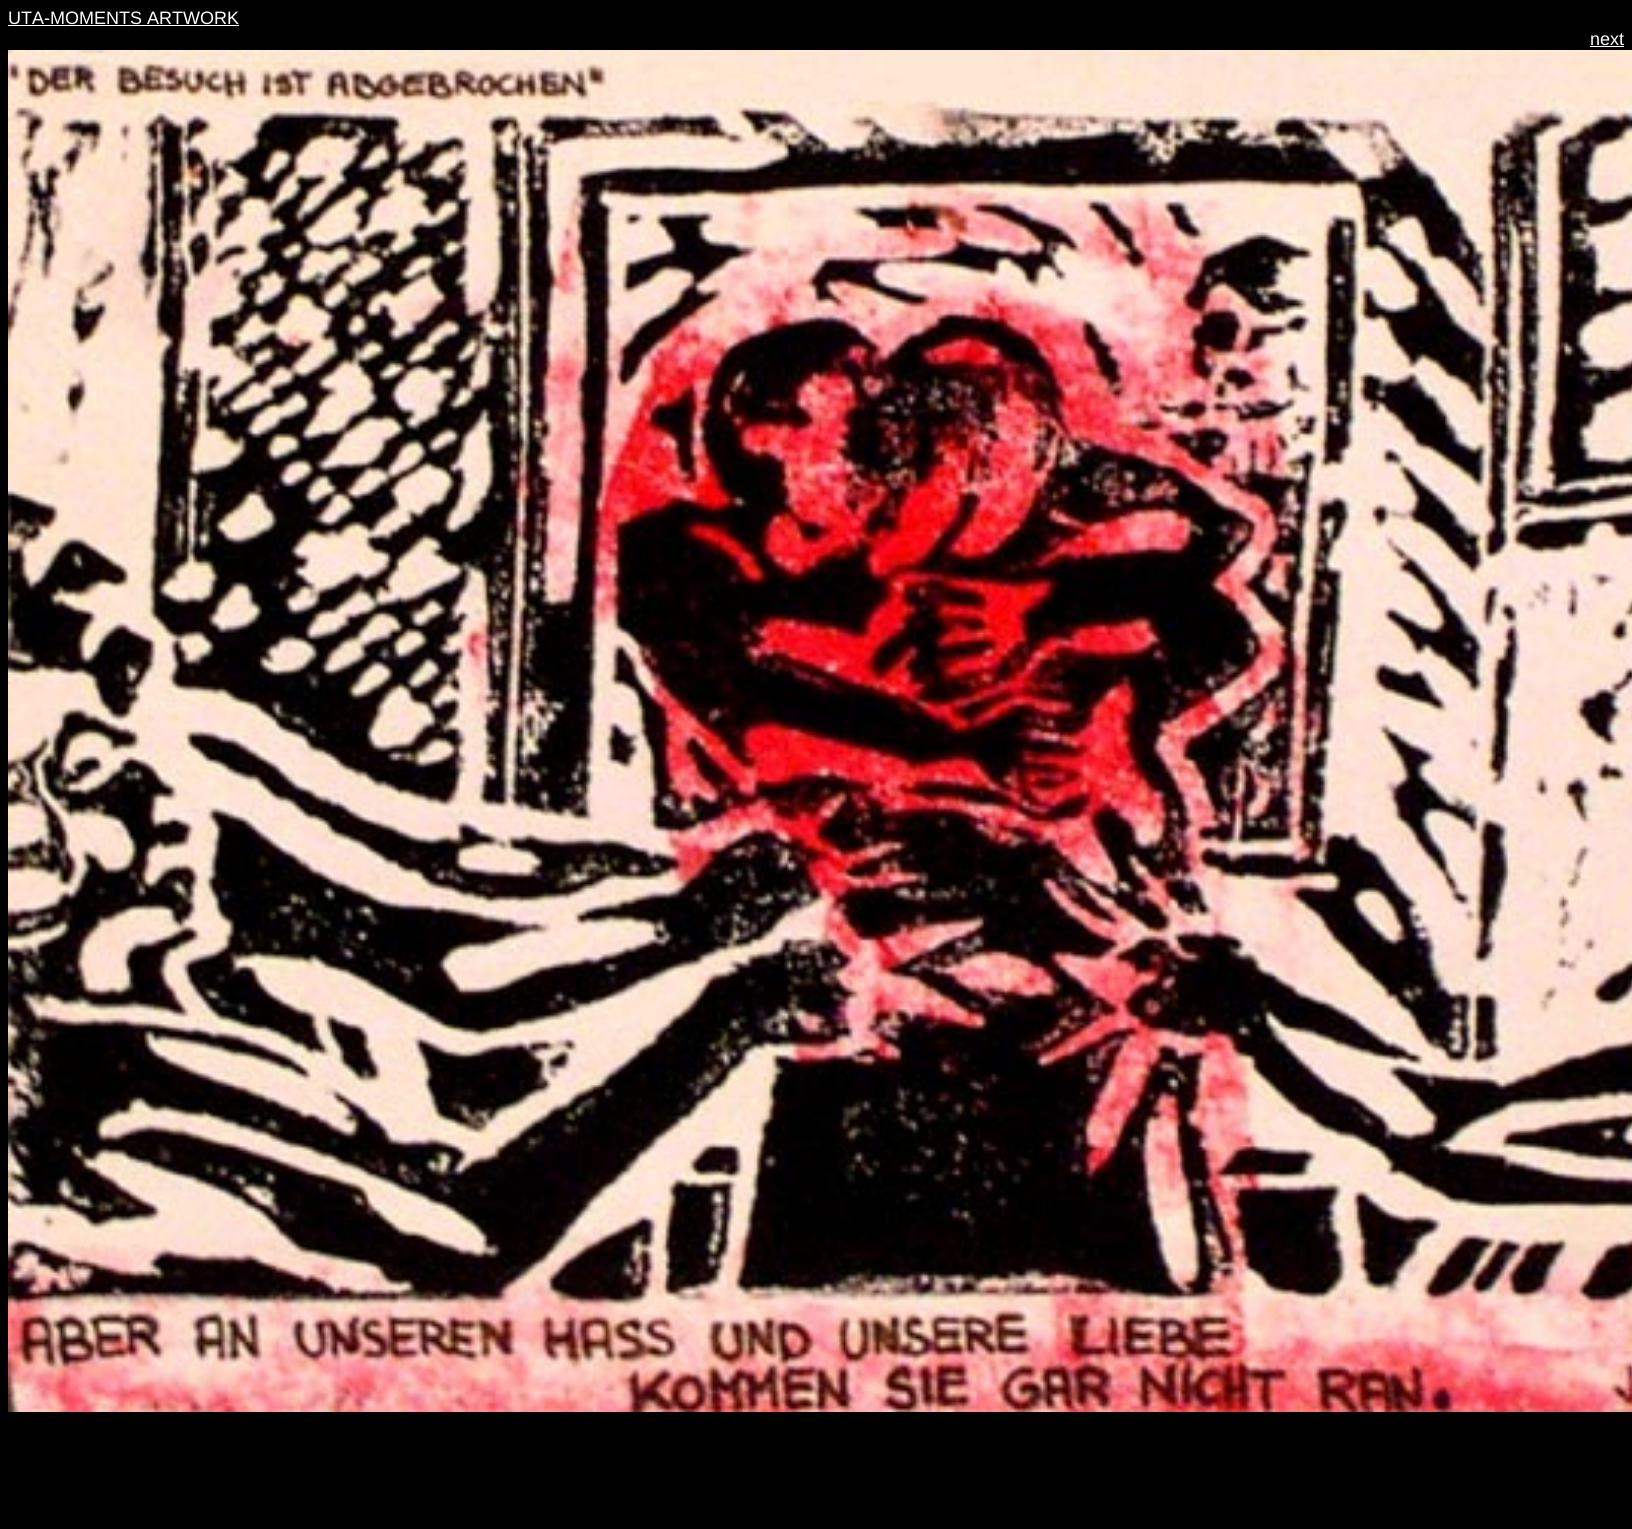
#include <cairo.h>
#include <math.h>
#include <stddef.h>

static cairo_t *ctx;

static void use_color(int r, int g, int b) {
    cairo_set_source_rgb(ctx, r / 255.0, g / 255.0, b / 255.0);
}

static void picture(const char *path, double x, double y, double w, double h) {
    cairo_surface_t *image = cairo_image_surface_create_from_png(path);
    cairo_save(ctx);
    cairo_set_source_surface(ctx, image, x, y);
    cairo_rectangle(ctx, x, y, w, h);
    cairo_fill(ctx);
    cairo_restore(ctx);
    cairo_surface_destroy(image);
}

int main(void) {
    cairo_surface_t *surface = cairo_image_surface_create(CAIRO_FORMAT_RGB24, 1632, 1529);
    ctx = cairo_create(surface);
    cairo_font_options_t *options = cairo_font_options_create();
    cairo_font_options_set_hint_metrics(options, CAIRO_HINT_METRICS_OFF);
    cairo_font_options_set_hint_style(options, CAIRO_HINT_STYLE_NONE);
    cairo_set_font_options(ctx, options);
    cairo_set_miter_limit(ctx, 4);
    use_color(0, 0, 0);
    cairo_paint(ctx);
    cairo_select_font_face(ctx, "Liberation Sans", CAIRO_FONT_SLANT_NORMAL, CAIRO_FONT_WEIGHT_NORMAL);
    cairo_set_font_size(ctx, 18);
    use_color(255, 255, 255);
    cairo_move_to(ctx, 8, 24);
    cairo_show_text(ctx, "UTA-MOMENTS ARTWORK");
    cairo_rectangle(ctx, 8, 25, 231, 1);
    cairo_fill(ctx);
    cairo_move_to(ctx, 1590, 45);
    cairo_show_text(ctx, "next");
    cairo_rectangle(ctx, 1590, 46, 34, 1);
    cairo_fill(ctx);
    picture("img1.png", 8, 50, 1624, 1362);
    cairo_surface_write_to_png(surface, "result.png");
    cairo_font_options_destroy(options);
    cairo_destroy(ctx);
    cairo_surface_destroy(surface);
    return 0;
}
